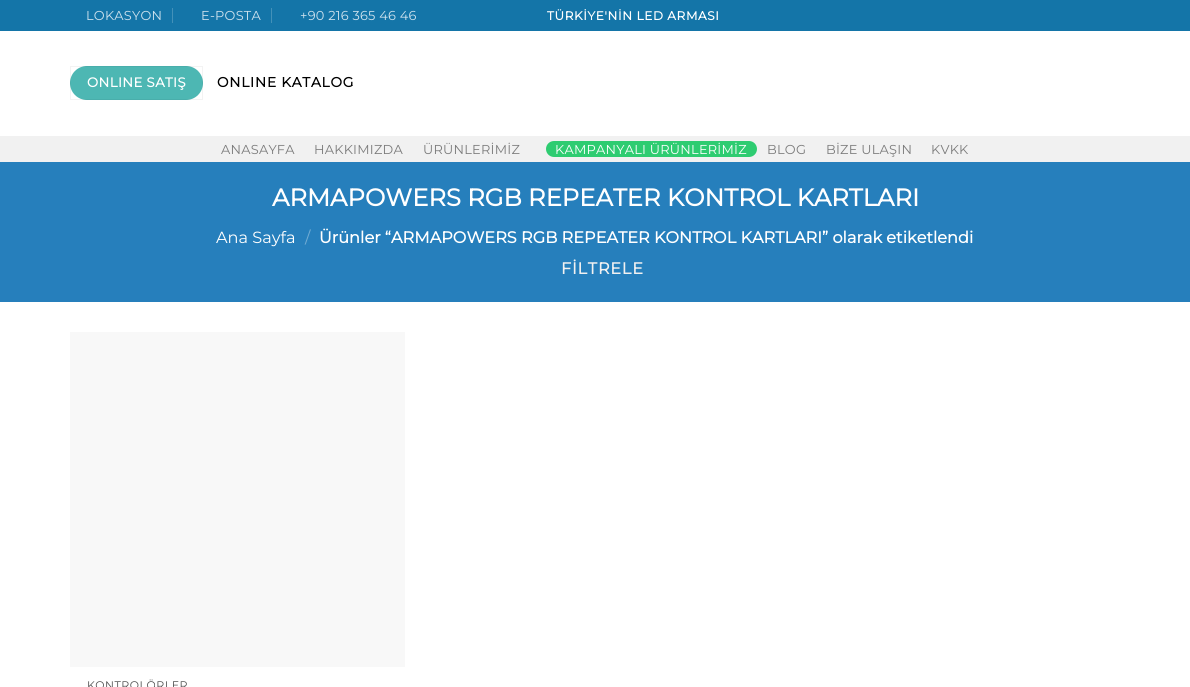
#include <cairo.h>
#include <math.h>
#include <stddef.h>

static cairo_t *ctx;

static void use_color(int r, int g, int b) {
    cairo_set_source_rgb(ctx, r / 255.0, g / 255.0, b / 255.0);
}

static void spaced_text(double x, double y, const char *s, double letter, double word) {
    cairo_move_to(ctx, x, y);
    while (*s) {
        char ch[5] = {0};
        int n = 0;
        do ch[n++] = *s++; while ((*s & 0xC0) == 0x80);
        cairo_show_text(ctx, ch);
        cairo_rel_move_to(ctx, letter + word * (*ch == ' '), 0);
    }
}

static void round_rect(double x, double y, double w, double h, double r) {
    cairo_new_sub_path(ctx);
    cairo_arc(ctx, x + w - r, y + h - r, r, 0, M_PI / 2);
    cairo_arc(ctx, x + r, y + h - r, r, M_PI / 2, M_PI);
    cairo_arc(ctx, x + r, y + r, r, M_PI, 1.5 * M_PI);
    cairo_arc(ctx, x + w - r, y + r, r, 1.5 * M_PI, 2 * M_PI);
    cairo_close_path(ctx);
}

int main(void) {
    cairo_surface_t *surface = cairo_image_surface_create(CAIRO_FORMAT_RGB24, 1190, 687);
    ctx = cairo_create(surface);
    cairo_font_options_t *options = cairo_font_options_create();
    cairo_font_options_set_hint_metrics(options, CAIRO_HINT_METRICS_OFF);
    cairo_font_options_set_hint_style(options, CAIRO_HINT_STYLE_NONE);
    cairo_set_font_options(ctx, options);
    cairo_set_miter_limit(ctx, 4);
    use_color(255, 255, 255);
    cairo_paint(ctx);
    use_color(20, 117, 168);
    cairo_rectangle(ctx, 0, 0, 1190, 31);
    cairo_fill(ctx);
    cairo_select_font_face(ctx, "Montserrat Thin", CAIRO_FONT_SLANT_NORMAL, CAIRO_FONT_WEIGHT_NORMAL);
    cairo_set_font_size(ctx, 12.9);
    use_color(208, 227, 238);
    spaced_text(86, 20, "LOKASYON", 0.25, 0);
    use_color(67, 145, 185);
    cairo_rectangle(ctx, 172, 8, 1, 15);
    cairo_fill(ctx);
    use_color(208, 227, 238);
    spaced_text(201, 20, "E-POSTA", 0.25, 0);
    use_color(67, 145, 185);
    cairo_rectangle(ctx, 271, 8, 1, 15);
    cairo_fill(ctx);
    use_color(208, 227, 238);
    spaced_text(300, 20, "+90 216 365 46 46", 0.25, 0);
    cairo_select_font_face(ctx, "Montserrat", CAIRO_FONT_SLANT_NORMAL, CAIRO_FONT_WEIGHT_BOLD);
    cairo_set_font_size(ctx, 12.1);
    use_color(255, 255, 255);
    spaced_text(547, 20, "TÜRKİYE'NİN LED ARMASI", 0.6, 0);
    use_color(77, 183, 179);
    round_rect(70, 66, 133, 34, 17);
    cairo_fill(ctx);
    cairo_rectangle(ctx, 70.5, 66.5, 132, 33);
    cairo_set_source_rgba(ctx, 0, 0, 0, 0.05);
    cairo_set_line_width(ctx, 1);
    cairo_stroke(ctx);
    cairo_set_font_size(ctx, 13.25);
    use_color(255, 255, 255);
    spaced_text(87, 87, "ONLINE SATIŞ", 0.4, 0);
    cairo_set_font_size(ctx, 13.75);
    use_color(0, 0, 0);
    spaced_text(217, 87, "ONLINE KATALOG", 0.75, 0);
    use_color(241, 241, 241);
    cairo_rectangle(ctx, 0, 136, 1190, 26);
    cairo_fill(ctx);
    cairo_select_font_face(ctx, "Montserrat Thin", CAIRO_FONT_SLANT_NORMAL, CAIRO_FONT_WEIGHT_NORMAL);
    cairo_set_font_size(ctx, 12.9);
    use_color(123, 123, 123);
    spaced_text(221, 154, "ANASAYFA", 0.25, 0);
    spaced_text(314, 154, "HAKKIMIZDA", 0.25, 0);
    spaced_text(423, 154, "ÜRÜNLERİMİZ", 0.25, 0);
    use_color(46, 204, 113);
    round_rect(546, 141, 211, 16, 8);
    cairo_fill(ctx);
    use_color(255, 255, 255);
    spaced_text(555, 154, "KAMPANYALI ÜRÜNLERİMİZ", 0.25, 0);
    use_color(123, 123, 123);
    spaced_text(767, 154, "BLOG", 0.25, 0);
    spaced_text(826, 154, "BİZE ULAŞIN", 0.25, 0);
    spaced_text(931, 154, "KVKK", 0.25, 0);
    use_color(38, 127, 188);
    cairo_rectangle(ctx, 0, 162, 1190, 140);
    cairo_fill(ctx);
    cairo_select_font_face(ctx, "Montserrat", CAIRO_FONT_SLANT_NORMAL, CAIRO_FONT_WEIGHT_BOLD);
    cairo_set_font_size(ctx, 24.25);
    use_color(255, 255, 255);
    cairo_move_to(ctx, 272, 206);
    cairo_show_text(ctx, "ARMAPOWERS RGB REPEATER KONTROL KARTLARI");
    cairo_select_font_face(ctx, "Montserrat Thin", CAIRO_FONT_SLANT_NORMAL, CAIRO_FONT_WEIGHT_NORMAL);
    cairo_set_font_size(ctx, 16.15);
    cairo_move_to(ctx, 216, 243);
    cairo_show_text(ctx, "Ana Sayfa");
    use_color(114, 172, 211);
    cairo_move_to(ctx, 305, 243);
    cairo_show_text(ctx, "/");
    cairo_select_font_face(ctx, "Montserrat", CAIRO_FONT_SLANT_NORMAL, CAIRO_FONT_WEIGHT_BOLD);
    use_color(255, 255, 255);
    cairo_move_to(ctx, 319, 243);
    cairo_show_text(ctx, "Ürünler “ARMAPOWERS RGB REPEATER KONTROL KARTLARI” olarak etiketlendi");
    use_color(241, 241, 241);
    spaced_text(561, 274, "FİLTRELE", 0.75, 0);
    use_color(248, 248, 248);
    cairo_rectangle(ctx, 70, 332, 335, 335);
    cairo_fill(ctx);
    cairo_select_font_face(ctx, "Montserrat Thin", CAIRO_FONT_SLANT_NORMAL, CAIRO_FONT_WEIGHT_NORMAL);
    cairo_set_font_size(ctx, 11);
    use_color(77, 77, 77);
    spaced_text(87, 689, "KONTROLÖRLER", 0.5, 0);
    cairo_surface_write_to_png(surface, "result.png");
    cairo_font_options_destroy(options);
    cairo_destroy(ctx);
    cairo_surface_destroy(surface);
    return 0;
}
